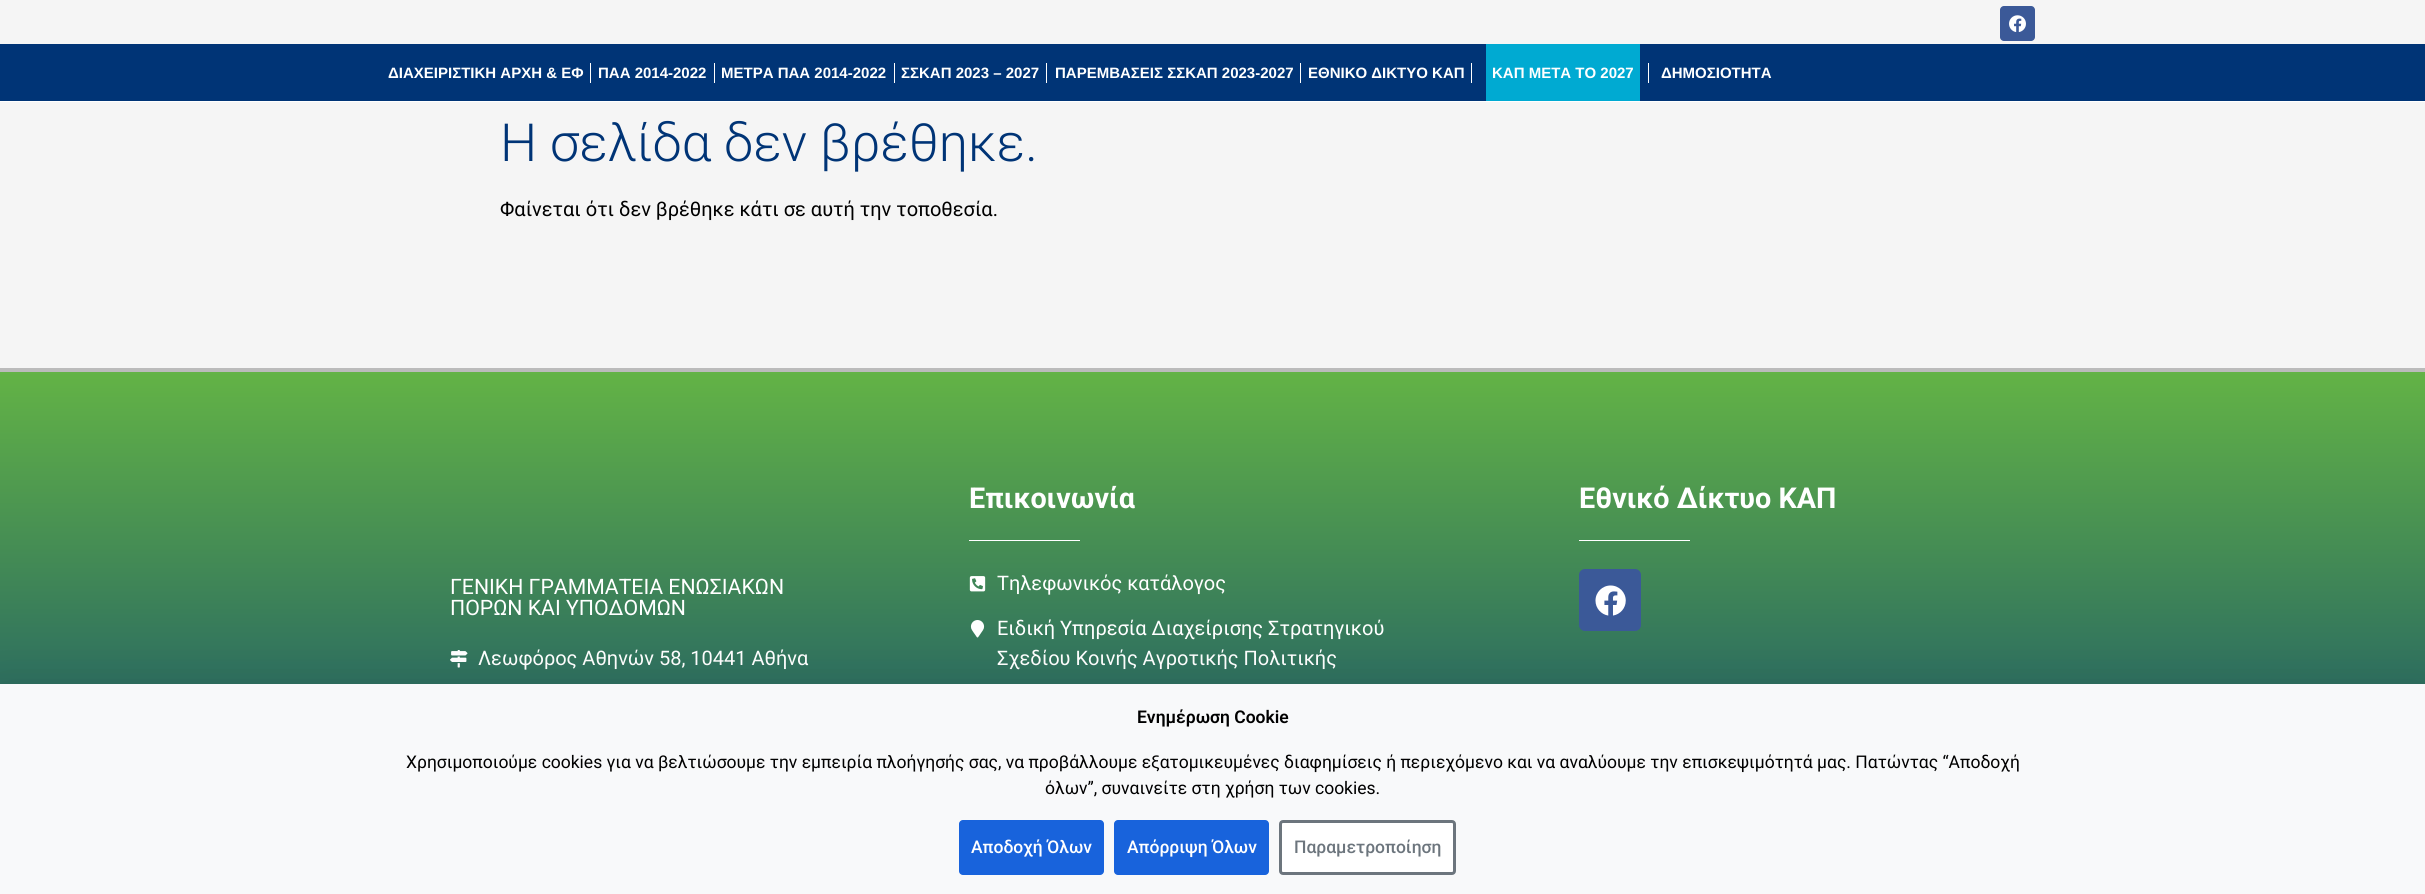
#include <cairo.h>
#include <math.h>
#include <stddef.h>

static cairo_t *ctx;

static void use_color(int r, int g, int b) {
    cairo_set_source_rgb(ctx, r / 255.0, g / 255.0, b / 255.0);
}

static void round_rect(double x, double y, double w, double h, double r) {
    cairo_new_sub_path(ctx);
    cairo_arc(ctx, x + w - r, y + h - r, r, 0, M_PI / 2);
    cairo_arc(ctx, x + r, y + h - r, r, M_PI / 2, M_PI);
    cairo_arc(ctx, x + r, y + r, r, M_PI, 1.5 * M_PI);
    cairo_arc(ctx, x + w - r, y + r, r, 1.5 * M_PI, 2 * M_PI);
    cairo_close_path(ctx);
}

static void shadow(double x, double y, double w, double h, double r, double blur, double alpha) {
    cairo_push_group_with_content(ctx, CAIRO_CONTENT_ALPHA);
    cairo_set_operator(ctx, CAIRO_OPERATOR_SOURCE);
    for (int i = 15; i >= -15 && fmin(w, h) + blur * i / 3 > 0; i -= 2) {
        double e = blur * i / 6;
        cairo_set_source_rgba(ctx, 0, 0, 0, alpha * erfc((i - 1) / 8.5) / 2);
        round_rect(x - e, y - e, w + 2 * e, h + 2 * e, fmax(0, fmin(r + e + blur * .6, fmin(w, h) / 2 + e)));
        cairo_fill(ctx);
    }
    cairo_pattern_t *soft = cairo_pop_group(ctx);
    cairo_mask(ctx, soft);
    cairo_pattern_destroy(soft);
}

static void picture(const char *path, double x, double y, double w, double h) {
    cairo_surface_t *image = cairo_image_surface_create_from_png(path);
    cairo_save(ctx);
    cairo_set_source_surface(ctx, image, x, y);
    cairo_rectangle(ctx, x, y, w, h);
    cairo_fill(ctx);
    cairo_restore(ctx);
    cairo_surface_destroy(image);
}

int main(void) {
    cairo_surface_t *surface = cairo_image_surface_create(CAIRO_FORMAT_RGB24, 2425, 894);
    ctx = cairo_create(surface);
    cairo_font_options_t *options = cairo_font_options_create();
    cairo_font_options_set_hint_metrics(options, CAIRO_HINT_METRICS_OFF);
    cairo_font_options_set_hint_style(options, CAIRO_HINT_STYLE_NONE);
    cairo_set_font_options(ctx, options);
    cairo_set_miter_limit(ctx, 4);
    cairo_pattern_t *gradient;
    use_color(245, 245, 245);
    cairo_paint(ctx);
    use_color(59, 89, 152);
    round_rect(2000, 6, 35, 35, 4);
    cairo_fill(ctx);
    picture("img1.png", 2009, 15, 17, 17);
    use_color(0, 52, 118);
    cairo_rectangle(ctx, 0, 44, 2425, 57);
    cairo_fill(ctx);
    use_color(255, 255, 255);
    cairo_rectangle(ctx, 0, 101, 2425, 1);
    cairo_fill(ctx);
    cairo_select_font_face(ctx, "Liberation Sans", CAIRO_FONT_SLANT_NORMAL, CAIRO_FONT_WEIGHT_BOLD);
    cairo_set_font_size(ctx, 15);
    cairo_move_to(ctx, 388, 78);
    cairo_show_text(ctx, "ΔΙΑΧΕΙΡΙΣΤΙΚΗ ΑΡΧΗ & ΕΦ");
    cairo_rectangle(ctx, 590, 63, 1, 20);
    cairo_fill(ctx);
    cairo_move_to(ctx, 598, 78);
    cairo_show_text(ctx, "ΠΑΑ 2014-2022");
    cairo_rectangle(ctx, 714, 63, 1, 20);
    cairo_fill(ctx);
    cairo_move_to(ctx, 721, 78);
    cairo_show_text(ctx, "ΜΕΤΡΑ ΠΑΑ 2014-2022");
    cairo_rectangle(ctx, 894, 63, 1, 20);
    cairo_fill(ctx);
    cairo_move_to(ctx, 901, 78);
    cairo_show_text(ctx, "ΣΣΚΑΠ 2023 – 2027");
    cairo_rectangle(ctx, 1046, 63, 1, 20);
    cairo_fill(ctx);
    cairo_move_to(ctx, 1055, 78);
    cairo_show_text(ctx, "ΠΑΡΕΜΒΑΣΕΙΣ ΣΣΚΑΠ 2023-2027");
    cairo_rectangle(ctx, 1300, 63, 1, 20);
    cairo_fill(ctx);
    cairo_move_to(ctx, 1308, 78);
    cairo_show_text(ctx, "ΕΘΝΙΚΟ ΔΙΚΤΥΟ ΚΑΠ");
    cairo_rectangle(ctx, 1471, 63, 1, 20);
    cairo_fill(ctx);
    use_color(0, 170, 210);
    cairo_rectangle(ctx, 1486, 44, 154, 57);
    cairo_fill(ctx);
    use_color(255, 255, 255);
    cairo_move_to(ctx, 1492, 78);
    cairo_show_text(ctx, "ΚΑΠ ΜΕΤΑ ΤΟ 2027");
    cairo_rectangle(ctx, 1648, 63, 1, 20);
    cairo_fill(ctx);
    cairo_move_to(ctx, 1661, 78);
    cairo_show_text(ctx, "ΔΗΜΟΣΙΟΤΗΤΑ");
    cairo_select_font_face(ctx, "Roboto Light", CAIRO_FONT_SLANT_NORMAL, CAIRO_FONT_WEIGHT_NORMAL);
    cairo_set_font_size(ctx, 52.5);
    use_color(0, 52, 118);
    cairo_move_to(ctx, 500, 161);
    cairo_show_text(ctx, "Η σελίδα δεν βρέθηκε.");
    cairo_select_font_face(ctx, "Roboto", CAIRO_FONT_SLANT_NORMAL, CAIRO_FONT_WEIGHT_NORMAL);
    cairo_set_font_size(ctx, 20);
    use_color(0, 0, 0);
    cairo_move_to(ctx, 500, 216);
    cairo_show_text(ctx, "Φαίνεται ότι δεν βρέθηκε κάτι σε αυτή την τοποθεσία.");
    use_color(0, 52, 118);
    cairo_rectangle(ctx, 0, 372, 2425, 312);
    cairo_fill(ctx);
    gradient = cairo_pattern_create_linear(1213, 371, 1213, 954);
    cairo_pattern_add_color_stop_rgba(gradient, 0, 0.392, 0.706, 0.271, 0.99);
    cairo_pattern_add_color_stop_rgba(gradient, 1, 0, 0.204, 0.463, 0.99);
    cairo_set_source(ctx, gradient);
    cairo_pattern_destroy(gradient);
    cairo_rectangle(ctx, 0, 372, 2425, 312);
    cairo_fill(ctx);
    use_color(187, 187, 187);
    cairo_rectangle(ctx, 0, 368, 2425, 4);
    cairo_fill(ctx);
    cairo_select_font_face(ctx, "Roboto", CAIRO_FONT_SLANT_NORMAL, CAIRO_FONT_WEIGHT_BOLD);
    cairo_set_font_size(ctx, 28.75);
    use_color(255, 255, 255);
    cairo_move_to(ctx, 969, 508);
    cairo_show_text(ctx, "Επικοινωνία");
    cairo_rectangle(ctx, 969, 540, 111, 1);
    cairo_fill(ctx);
    picture("img2.png", 969, 576, 17, 16);
    cairo_select_font_face(ctx, "Roboto", CAIRO_FONT_SLANT_NORMAL, CAIRO_FONT_WEIGHT_NORMAL);
    cairo_set_font_size(ctx, 20);
    cairo_move_to(ctx, 997, 590);
    cairo_show_text(ctx, "Τηλεφωνικός κατάλογος");
    picture("img3.png", 970, 620, 15, 18);
    cairo_move_to(ctx, 997, 635);
    cairo_show_text(ctx, "Ειδική Υπηρεσία Διαχείρισης Στρατηγικού");
    cairo_move_to(ctx, 997, 665);
    cairo_show_text(ctx, "Σχεδίου Κοινής Αγροτικής Πολιτικής");
    cairo_select_font_face(ctx, "Roboto", CAIRO_FONT_SLANT_NORMAL, CAIRO_FONT_WEIGHT_BOLD);
    cairo_set_font_size(ctx, 28.75);
    cairo_move_to(ctx, 1579, 508);
    cairo_show_text(ctx, "Εθνικό Δίκτυο ΚΑΠ");
    cairo_rectangle(ctx, 1579, 540, 111, 1);
    cairo_fill(ctx);
    use_color(59, 89, 152);
    round_rect(1579, 569, 62, 62, 6);
    cairo_fill(ctx);
    picture("img4.png", 1595, 585, 31, 31);
    cairo_select_font_face(ctx, "Roboto", CAIRO_FONT_SLANT_NORMAL, CAIRO_FONT_WEIGHT_NORMAL);
    cairo_set_font_size(ctx, 21.25);
    use_color(255, 255, 255);
    cairo_move_to(ctx, 450, 594);
    cairo_show_text(ctx, "ΓΕΝΙΚΗ ΓΡΑΜΜΑΤΕΙΑ ΕΝΩΣΙΑΚΩΝ");
    cairo_move_to(ctx, 450, 615);
    cairo_show_text(ctx, "ΠΟΡΩΝ ΚΑΙ ΥΠΟΔΟΜΩΝ");
    picture("img5.png", 450, 650, 18, 18);
    cairo_set_font_size(ctx, 20);
    cairo_move_to(ctx, 478, 665);
    cairo_show_text(ctx, "Λεωφόρος Αθηνών 58, 10441 Αθήνα");
    use_color(0, 0, 0);
    shadow(0, 704, 2425, 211, 0, 30, 0.18);
    use_color(248, 249, 250);
    cairo_rectangle(ctx, 0, 684, 2425, 210);
    cairo_fill(ctx);
    cairo_select_font_face(ctx, "Roboto SemiBold", CAIRO_FONT_SLANT_NORMAL, CAIRO_FONT_WEIGHT_NORMAL);
    cairo_set_font_size(ctx, 17.5);
    use_color(0, 0, 0);
    cairo_move_to(ctx, 1137, 723);
    cairo_show_text(ctx, "Ενημέρωση Cookie");
    cairo_select_font_face(ctx, "Roboto", CAIRO_FONT_SLANT_NORMAL, CAIRO_FONT_WEIGHT_NORMAL);
    cairo_move_to(ctx, 406, 768);
    cairo_show_text(ctx, "Χρησιμοποιούμε cookies για να βελτιώσουμε την εμπειρία πλοήγησής σας, να προβάλλουμε εξατομικευμένες διαφημίσεις ή περιεχόμενο και να αναλύουμε την επισκεψιμότητά μας. Πατώντας “Αποδοχή");
    cairo_move_to(ctx, 1045, 794);
    cairo_show_text(ctx, "όλων”, συναινείτε στη χρήση των cookies.");
    use_color(24, 99, 220);
    round_rect(959, 820, 145, 55, 4);
    cairo_fill(ctx);
    cairo_select_font_face(ctx, "Roboto Medium", CAIRO_FONT_SLANT_NORMAL, CAIRO_FONT_WEIGHT_NORMAL);
    use_color(255, 255, 255);
    cairo_move_to(ctx, 971, 853);
    cairo_show_text(ctx, "Αποδοχή Όλων");
    use_color(24, 99, 220);
    round_rect(1114, 820, 155, 55, 4);
    cairo_fill(ctx);
    use_color(255, 255, 255);
    cairo_move_to(ctx, 1127, 853);
    cairo_show_text(ctx, "Απόρριψη Όλων");
    round_rect(1280.5, 821.5, 174, 52, 2.5);
    cairo_fill_preserve(ctx);
    use_color(108, 117, 125);
    cairo_set_line_width(ctx, 3);
    cairo_stroke(ctx);
    cairo_move_to(ctx, 1294, 853);
    cairo_show_text(ctx, "Παραμετροποίηση");
    cairo_surface_write_to_png(surface, "result.png");
    cairo_font_options_destroy(options);
    cairo_destroy(ctx);
    cairo_surface_destroy(surface);
    return 0;
}
